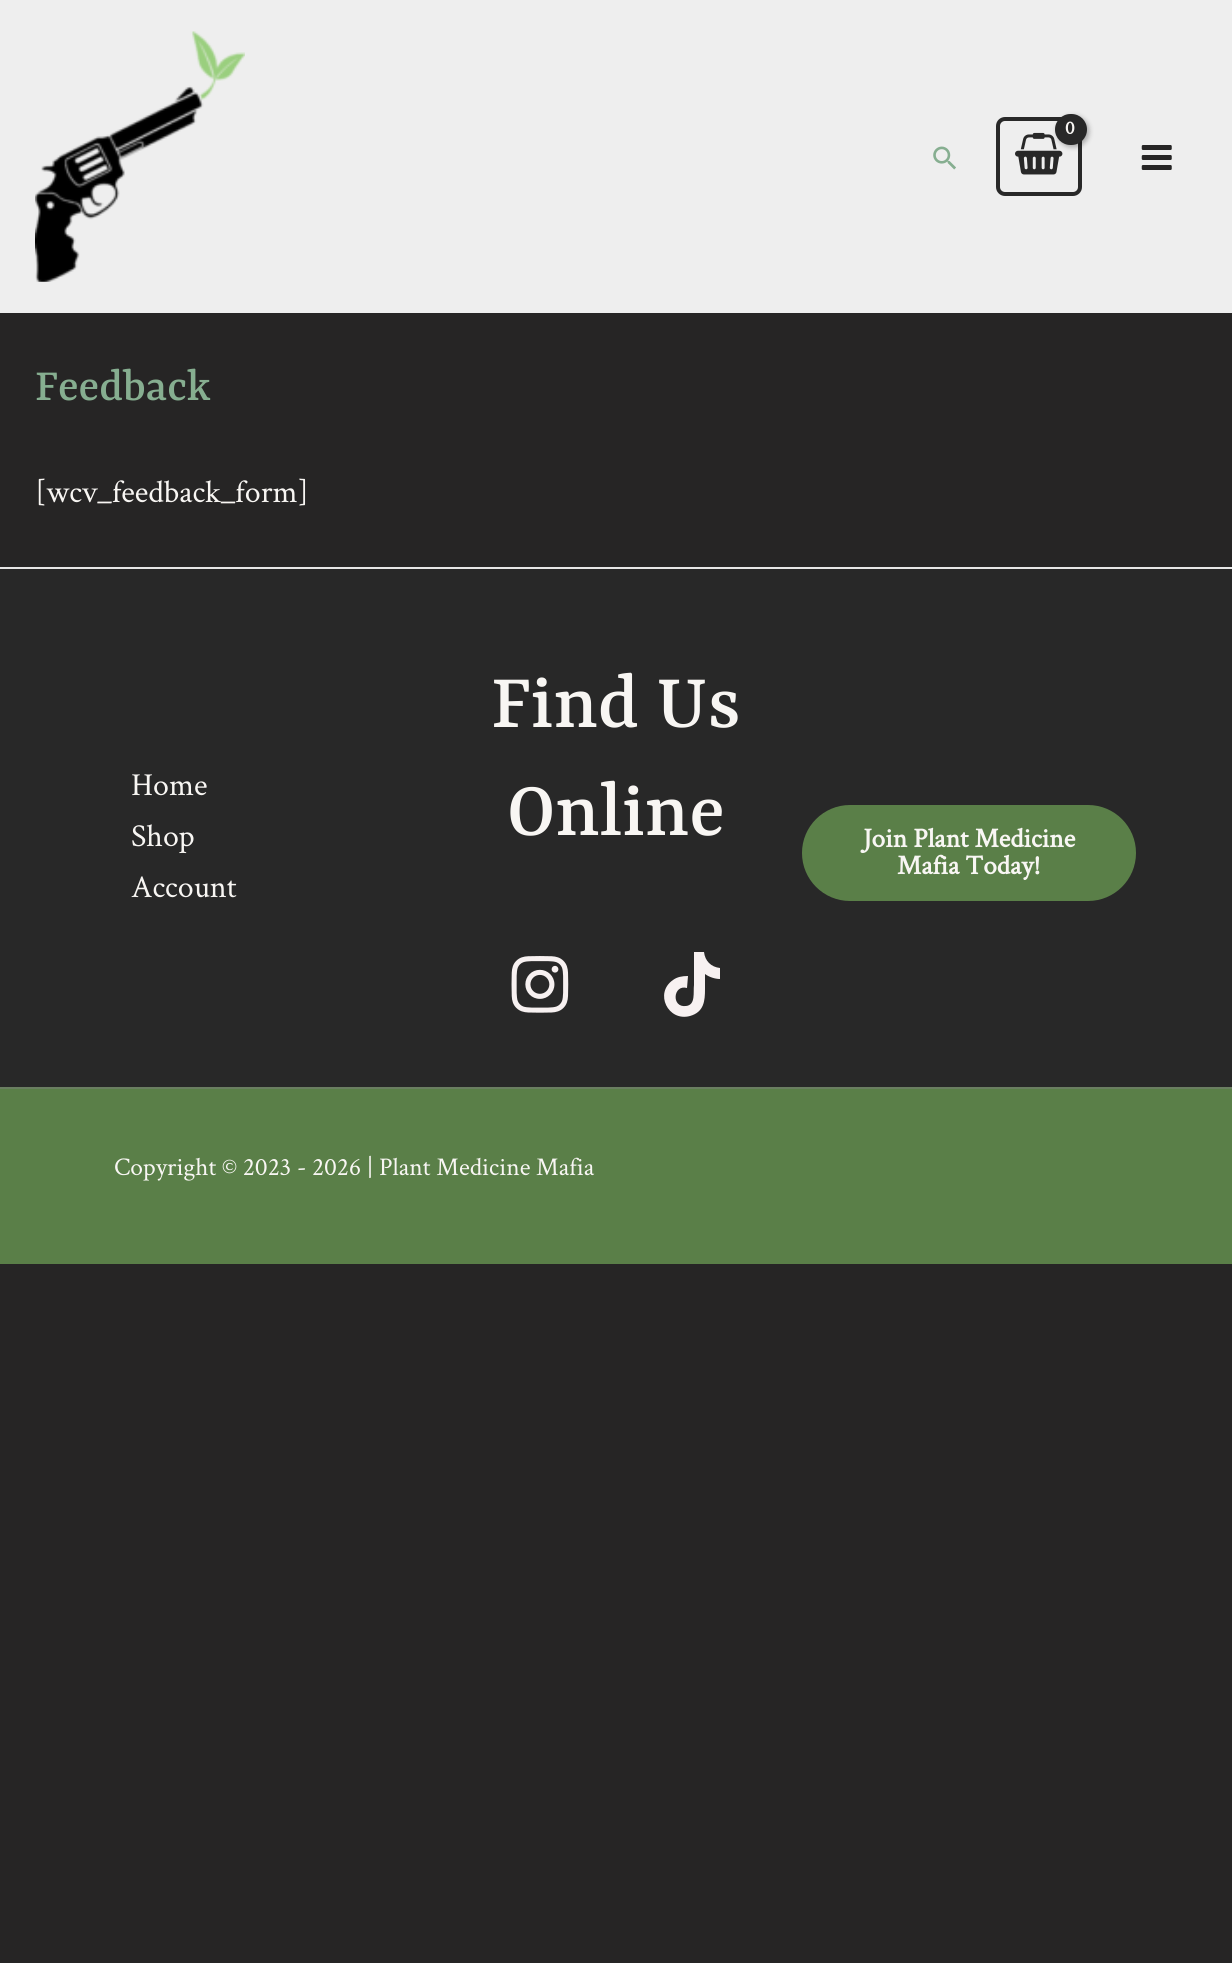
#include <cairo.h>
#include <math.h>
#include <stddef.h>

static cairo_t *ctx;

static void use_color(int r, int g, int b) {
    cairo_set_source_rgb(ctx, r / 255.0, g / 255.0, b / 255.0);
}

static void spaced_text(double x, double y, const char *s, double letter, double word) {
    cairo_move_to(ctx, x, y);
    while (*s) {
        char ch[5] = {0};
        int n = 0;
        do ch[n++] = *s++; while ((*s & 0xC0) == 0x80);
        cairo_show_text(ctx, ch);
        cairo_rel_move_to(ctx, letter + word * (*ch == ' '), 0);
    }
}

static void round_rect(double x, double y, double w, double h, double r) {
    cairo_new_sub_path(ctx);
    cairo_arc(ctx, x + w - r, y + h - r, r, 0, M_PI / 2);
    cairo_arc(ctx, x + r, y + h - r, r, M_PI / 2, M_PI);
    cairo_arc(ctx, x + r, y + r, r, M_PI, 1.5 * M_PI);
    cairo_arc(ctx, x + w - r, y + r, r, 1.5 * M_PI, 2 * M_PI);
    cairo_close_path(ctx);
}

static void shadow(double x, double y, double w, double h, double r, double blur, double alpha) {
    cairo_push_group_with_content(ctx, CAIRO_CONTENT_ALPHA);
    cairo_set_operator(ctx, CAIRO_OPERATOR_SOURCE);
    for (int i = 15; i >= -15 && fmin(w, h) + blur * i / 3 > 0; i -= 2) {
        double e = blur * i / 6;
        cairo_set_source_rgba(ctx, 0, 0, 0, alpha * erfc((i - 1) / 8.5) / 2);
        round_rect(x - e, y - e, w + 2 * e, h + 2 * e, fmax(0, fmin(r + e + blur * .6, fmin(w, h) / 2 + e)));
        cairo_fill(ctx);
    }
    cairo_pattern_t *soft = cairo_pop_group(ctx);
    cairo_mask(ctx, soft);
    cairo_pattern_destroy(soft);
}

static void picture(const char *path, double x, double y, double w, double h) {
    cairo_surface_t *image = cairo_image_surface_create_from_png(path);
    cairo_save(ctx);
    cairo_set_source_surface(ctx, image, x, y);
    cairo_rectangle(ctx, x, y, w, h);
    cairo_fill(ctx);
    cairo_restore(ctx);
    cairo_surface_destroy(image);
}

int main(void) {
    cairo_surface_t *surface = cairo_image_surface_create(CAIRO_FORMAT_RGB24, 1232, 1963);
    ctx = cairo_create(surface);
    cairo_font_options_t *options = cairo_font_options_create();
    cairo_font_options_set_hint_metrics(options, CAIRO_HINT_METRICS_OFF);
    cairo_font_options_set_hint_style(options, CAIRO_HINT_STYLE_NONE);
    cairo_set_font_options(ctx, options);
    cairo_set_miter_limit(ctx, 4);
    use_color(38, 37, 37);
    cairo_paint(ctx);
    use_color(238, 238, 238);
    cairo_rectangle(ctx, 0, 0, 1232, 313);
    cairo_fill(ctx);
    picture("img1.png", 35, 31, 210, 251);
    round_rect(998, 119, 82, 75, 7);
    use_color(40, 40, 40);
    cairo_set_line_width(ctx, 4);
    cairo_stroke(ctx);
    picture("img2.png", 1015, 132, 48, 43);
    use_color(0, 0, 0);
    shadow(1057, 116, 32, 31, 15.5, 2.5, 0.3);
    use_color(40, 40, 40);
    round_rect(1055, 114, 32, 31, 15.5);
    cairo_fill(ctx);
    cairo_select_font_face(ctx, "Crimson Text", CAIRO_FONT_SLANT_NORMAL, CAIRO_FONT_WEIGHT_BOLD);
    cairo_set_font_size(ctx, 19);
    use_color(248, 246, 243);
    spaced_text(1065, 134, "0", -1, 0);
    picture("img3.png", 933, 146, 23, 24);
    picture("img4.png", 1141, 145, 31, 25);
    cairo_select_font_face(ctx, "Yrsa Medium", CAIRO_FONT_SLANT_NORMAL, CAIRO_FONT_WEIGHT_NORMAL);
    cairo_set_font_size(ctx, 48);
    use_color(134, 174, 144);
    cairo_move_to(ctx, 35, 400);
    cairo_show_text(ctx, "Feedback");
    cairo_select_font_face(ctx, "Crimson Text", CAIRO_FONT_SLANT_NORMAL, CAIRO_FONT_WEIGHT_NORMAL);
    cairo_set_font_size(ctx, 32);
    use_color(248, 246, 243);
    cairo_move_to(ctx, 35, 502);
    cairo_show_text(ctx, "[wcv_feedback_form]");
    use_color(40, 40, 40);
    cairo_rectangle(ctx, 0, 569, 1232, 518);
    cairo_fill(ctx);
    use_color(230, 230, 230);
    cairo_rectangle(ctx, 0, 567, 1232, 2);
    cairo_fill(ctx);
    use_color(248, 246, 243);
    cairo_move_to(ctx, 131, 795);
    cairo_show_text(ctx, "Home");
    cairo_move_to(ctx, 131, 846);
    cairo_show_text(ctx, "Shop");
    cairo_move_to(ctx, 131, 897);
    cairo_show_text(ctx, "Account");
    cairo_select_font_face(ctx, "Yrsa Medium", CAIRO_FONT_SLANT_NORMAL, CAIRO_FONT_WEIGHT_NORMAL);
    cairo_set_font_size(ctx, 83);
    cairo_move_to(ctx, 491, 727);
    cairo_show_text(ctx, "Find Us");
    cairo_move_to(ctx, 507, 835);
    cairo_show_text(ctx, "Online");
    picture("img5.png", 511, 956, 58, 57);
    use_color(247, 241, 241);
    cairo_new_path(ctx);
    cairo_move_to(ctx, 694, 952);
    cairo_line_to(ctx, 704, 952);
    cairo_curve_to(ctx, 705, 961, 711, 967, 720, 968);
    cairo_line_to(ctx, 720, 979);
    cairo_curve_to(ctx, 715, 979, 709, 977, 705, 974);
    cairo_line_to(ctx, 705, 989);
    cairo_curve_to(ctx, 705, 1001, 704, 1012, 690, 1016);
    cairo_curve_to(ctx, 668, 1022, 654, 993, 673, 980);
    cairo_curve_to(ctx, 677, 977, 682, 976, 688, 976);
    cairo_line_to(ctx, 687, 988);
    cairo_curve_to(ctx, 673, 984, 671, 1008, 686, 1006);
    cairo_curve_to(ctx, 696, 1005, 693, 992, 694, 985);
    cairo_close_path(ctx);
    cairo_fill(ctx);
    use_color(90, 127, 72);
    round_rect(802, 805, 334, 96, 48);
    cairo_fill(ctx);
    cairo_select_font_face(ctx, "Crimson Text", CAIRO_FONT_SLANT_NORMAL, CAIRO_FONT_WEIGHT_BOLD);
    cairo_set_font_size(ctx, 27.25);
    use_color(248, 246, 243);
    cairo_move_to(ctx, 863, 847);
    cairo_show_text(ctx, "Join Plant Medicine");
    cairo_move_to(ctx, 897, 874);
    cairo_show_text(ctx, "Mafia Today!");
    use_color(90, 127, 72);
    cairo_rectangle(ctx, 0, 1089, 1232, 175);
    cairo_fill(ctx);
    use_color(106, 126, 97);
    cairo_rectangle(ctx, 0, 1087, 1232, 2);
    cairo_fill(ctx);
    cairo_select_font_face(ctx, "Crimson Text", CAIRO_FONT_SLANT_NORMAL, CAIRO_FONT_WEIGHT_NORMAL);
    cairo_set_font_size(ctx, 25.5);
    use_color(248, 246, 243);
    cairo_move_to(ctx, 114, 1175);
    cairo_show_text(ctx, "Copyright © 2023 - 2026 | Plant Medicine Mafia");
    cairo_surface_write_to_png(surface, "result.png");
    cairo_font_options_destroy(options);
    cairo_destroy(ctx);
    cairo_surface_destroy(surface);
    return 0;
}
